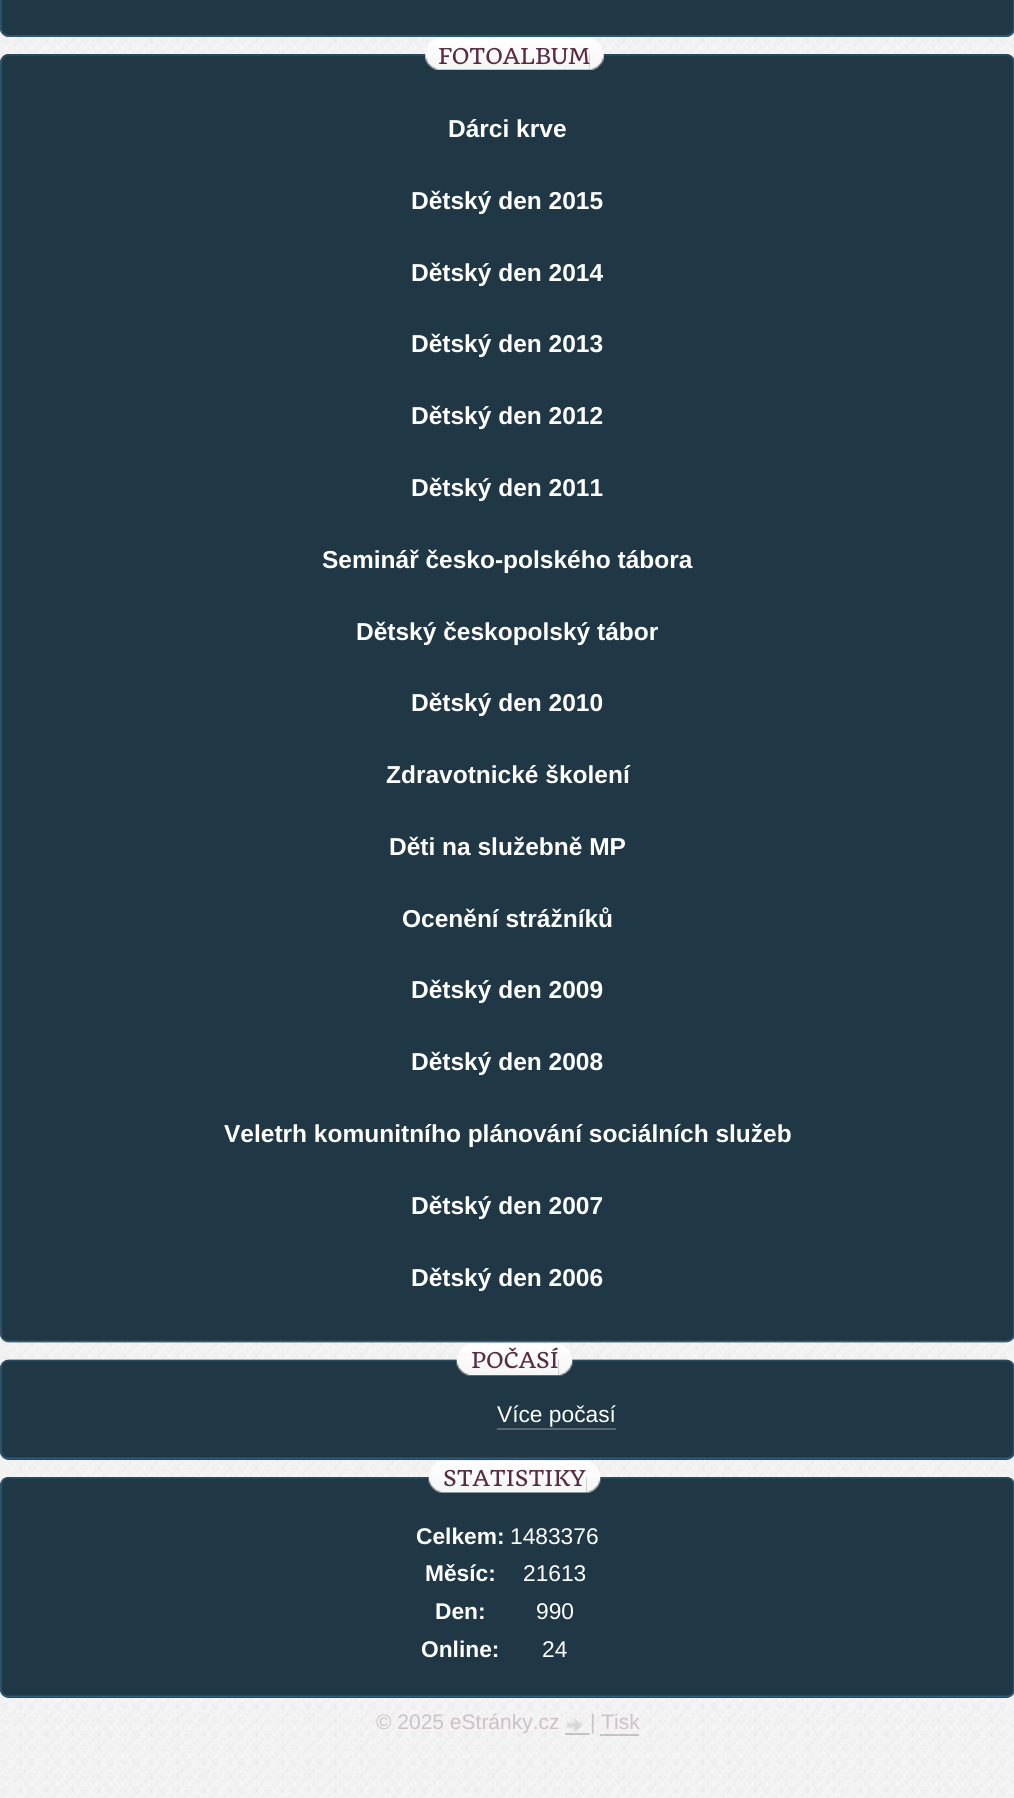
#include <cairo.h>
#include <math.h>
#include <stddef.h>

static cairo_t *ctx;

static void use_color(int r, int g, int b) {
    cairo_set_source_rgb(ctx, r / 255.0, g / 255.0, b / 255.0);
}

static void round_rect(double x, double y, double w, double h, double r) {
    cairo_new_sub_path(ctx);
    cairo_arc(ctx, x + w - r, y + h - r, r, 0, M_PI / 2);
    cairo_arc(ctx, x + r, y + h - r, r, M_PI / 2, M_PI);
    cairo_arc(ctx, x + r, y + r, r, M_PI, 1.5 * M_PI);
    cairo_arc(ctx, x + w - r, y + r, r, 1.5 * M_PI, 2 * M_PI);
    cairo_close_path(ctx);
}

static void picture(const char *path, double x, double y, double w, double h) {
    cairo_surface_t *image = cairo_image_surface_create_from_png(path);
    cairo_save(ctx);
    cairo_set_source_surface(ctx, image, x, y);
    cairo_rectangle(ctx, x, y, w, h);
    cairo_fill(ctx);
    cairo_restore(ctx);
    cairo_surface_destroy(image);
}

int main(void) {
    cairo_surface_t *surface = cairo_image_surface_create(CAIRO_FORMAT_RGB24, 1014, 1798);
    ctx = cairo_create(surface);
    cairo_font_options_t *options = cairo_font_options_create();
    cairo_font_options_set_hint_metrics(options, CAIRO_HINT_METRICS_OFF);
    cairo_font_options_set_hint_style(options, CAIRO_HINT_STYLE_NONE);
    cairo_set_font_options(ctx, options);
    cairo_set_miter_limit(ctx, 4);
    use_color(242, 242, 242);
    cairo_paint(ctx);
    picture("img1.png", 2, 33, 1011, 1765);
    use_color(32, 55, 69);
    round_rect(0, -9, 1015, 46, 9);
    cairo_fill(ctx);
    cairo_new_path(ctx);
    cairo_move_to(ctx, 1012, -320.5);
    cairo_curve_to(ctx, 1013.5, -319, 1014, -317, 1014, -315);
    cairo_line_to(ctx, 1014, 28);
    cairo_curve_to(ctx, 1014, 30, 1013.5, 32, 1012, 33.5);
    use_color(47, 85, 111);
    cairo_set_line_width(ctx, 1.8);
    cairo_stroke(ctx);
    cairo_new_path(ctx);
    cairo_move_to(ctx, 1012, 33.5);
    cairo_curve_to(ctx, 1010.5, 35, 1008.5, 36, 1006, 36);
    cairo_line_to(ctx, 9, 36);
    cairo_curve_to(ctx, 6.5, 36, 4.5, 35, 3, 33.5);
    use_color(49, 93, 122);
    cairo_stroke(ctx);
    cairo_new_path(ctx);
    cairo_move_to(ctx, 3, 33.5);
    cairo_curve_to(ctx, 1.5, 32, 1, 30, 1, 28);
    cairo_line_to(ctx, 1, -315);
    cairo_curve_to(ctx, 1, -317, 1.5, -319, 3, -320.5);
    use_color(47, 85, 111);
    cairo_stroke(ctx);
    use_color(32, 55, 69);
    round_rect(0, 54, 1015, 1288, 9);
    cairo_fill(ctx);
    cairo_new_path(ctx);
    cairo_move_to(ctx, 3, 57.5);
    cairo_curve_to(ctx, 4.5, 56, 6.5, 55, 8.5, 55);
    cairo_line_to(ctx, 1006, 55);
    cairo_curve_to(ctx, 1008.5, 55, 1010.5, 56, 1012, 57.5);
    use_color(39, 74, 97);
    cairo_stroke(ctx);
    cairo_new_path(ctx);
    cairo_move_to(ctx, 1012, 57.5);
    cairo_curve_to(ctx, 1013.5, 59, 1014, 61, 1014, 63);
    cairo_line_to(ctx, 1014, 1333.5);
    cairo_curve_to(ctx, 1014, 1335.5, 1013.5, 1337.5, 1012, 1339);
    use_color(47, 85, 111);
    cairo_stroke(ctx);
    cairo_new_path(ctx);
    cairo_move_to(ctx, 1012, 1339);
    cairo_curve_to(ctx, 1010.5, 1340.5, 1008.5, 1341.5, 1006, 1341.5);
    cairo_line_to(ctx, 9, 1341.5);
    cairo_curve_to(ctx, 6.5, 1341.5, 4.5, 1340.5, 3, 1339);
    use_color(49, 93, 122);
    cairo_stroke(ctx);
    cairo_new_path(ctx);
    cairo_move_to(ctx, 3, 1339);
    cairo_curve_to(ctx, 1.5, 1337.5, 1, 1335.5, 1, 1333.5);
    cairo_line_to(ctx, 1, 63);
    cairo_curve_to(ctx, 1, 61, 1.5, 59, 3, 57.5);
    use_color(47, 85, 111);
    cairo_stroke(ctx);
    picture("img2.png", 425, 38, 165, 32);
    cairo_select_font_face(ctx, "Quando", CAIRO_FONT_SLANT_NORMAL, CAIRO_FONT_WEIGHT_NORMAL);
    cairo_set_font_size(ctx, 24.5);
    use_color(89, 44, 70);
    cairo_move_to(ctx, 438, 64);
    cairo_show_text(ctx, "FOTOALBUM");
    picture("img3.png", 589, 38, 15, 32);
    cairo_select_font_face(ctx, "Liberation Sans", CAIRO_FONT_SLANT_NORMAL, CAIRO_FONT_WEIGHT_BOLD);
    use_color(255, 255, 255);
    cairo_move_to(ctx, 448, 137);
    cairo_show_text(ctx, "Dárci krve");
    cairo_move_to(ctx, 411, 209);
    cairo_show_text(ctx, "Dětský den 2015");
    cairo_move_to(ctx, 411, 281);
    cairo_show_text(ctx, "Dětský den 2014");
    cairo_move_to(ctx, 411, 352);
    cairo_show_text(ctx, "Dětský den 2013");
    cairo_move_to(ctx, 411, 424);
    cairo_show_text(ctx, "Dětský den 2012");
    cairo_move_to(ctx, 411, 496);
    cairo_show_text(ctx, "Dětský den 2011");
    cairo_move_to(ctx, 322, 568);
    cairo_show_text(ctx, "Seminář česko-polského tábora");
    cairo_move_to(ctx, 356, 640);
    cairo_show_text(ctx, "Dětský českopolský tábor");
    cairo_move_to(ctx, 411, 711);
    cairo_show_text(ctx, "Dětský den 2010");
    cairo_move_to(ctx, 386, 783);
    cairo_show_text(ctx, "Zdravotnické školení");
    cairo_move_to(ctx, 389, 855);
    cairo_show_text(ctx, "Děti na služebně MP");
    cairo_move_to(ctx, 402, 927);
    cairo_show_text(ctx, "Ocenění strážníků");
    cairo_move_to(ctx, 411, 998);
    cairo_show_text(ctx, "Dětský den 2009");
    cairo_move_to(ctx, 411, 1070);
    cairo_show_text(ctx, "Dětský den 2008");
    cairo_move_to(ctx, 224, 1142);
    cairo_show_text(ctx, "Veletrh komunitního plánování sociálních služeb");
    cairo_move_to(ctx, 411, 1214);
    cairo_show_text(ctx, "Dětský den 2007");
    cairo_move_to(ctx, 411, 1286);
    cairo_show_text(ctx, "Dětský den 2006");
    use_color(32, 55, 69);
    round_rect(0, 1360, 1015, 100, 9);
    cairo_fill(ctx);
    cairo_new_path(ctx);
    cairo_move_to(ctx, 3, 1363);
    cairo_curve_to(ctx, 4.5, 1361.5, 6.5, 1360.5, 8.5, 1360.5);
    cairo_line_to(ctx, 1006, 1360.5);
    cairo_curve_to(ctx, 1008.5, 1360.5, 1010.5, 1361.5, 1012, 1363);
    use_color(39, 74, 97);
    cairo_stroke(ctx);
    cairo_new_path(ctx);
    cairo_move_to(ctx, 1012, 1363);
    cairo_curve_to(ctx, 1013.5, 1364.5, 1014, 1366.5, 1014, 1368.5);
    cairo_line_to(ctx, 1014, 1451);
    cairo_curve_to(ctx, 1014, 1453, 1013.5, 1455, 1012, 1456.5);
    use_color(47, 85, 111);
    cairo_stroke(ctx);
    cairo_new_path(ctx);
    cairo_move_to(ctx, 1012, 1456.5);
    cairo_curve_to(ctx, 1010.5, 1458, 1008.5, 1458.5, 1006, 1458.5);
    cairo_line_to(ctx, 9, 1458.5);
    cairo_curve_to(ctx, 6.5, 1458.5, 4.5, 1458, 3, 1456.5);
    use_color(49, 93, 122);
    cairo_stroke(ctx);
    cairo_new_path(ctx);
    cairo_move_to(ctx, 3, 1456.5);
    cairo_curve_to(ctx, 1.5, 1455, 1, 1453, 1, 1451);
    cairo_line_to(ctx, 1, 1368.5);
    cairo_curve_to(ctx, 1, 1366.5, 1.5, 1364.5, 3, 1363);
    use_color(47, 85, 111);
    cairo_stroke(ctx);
    picture("img4.png", 456, 1343, 103, 33);
    cairo_select_font_face(ctx, "Quando", CAIRO_FONT_SLANT_NORMAL, CAIRO_FONT_WEIGHT_NORMAL);
    use_color(89, 44, 70);
    cairo_move_to(ctx, 471, 1368);
    cairo_show_text(ctx, "POČASÍ");
    picture("img5.png", 558, 1344, 15, 32);
    cairo_select_font_face(ctx, "Liberation Sans", CAIRO_FONT_SLANT_NORMAL, CAIRO_FONT_WEIGHT_NORMAL);
    cairo_set_font_size(ctx, 22.75);
    use_color(255, 255, 255);
    cairo_move_to(ctx, 497, 1422);
    cairo_show_text(ctx, "Více počasí");
    use_color(91, 103, 110);
    cairo_rectangle(ctx, 497, 1428, 119, 2);
    cairo_fill(ctx);
    use_color(32, 55, 69);
    round_rect(0, 1477, 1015, 221, 9);
    cairo_fill(ctx);
    cairo_new_path(ctx);
    cairo_move_to(ctx, 3, 1480);
    cairo_curve_to(ctx, 4.5, 1478.5, 6.5, 1478, 8.5, 1478);
    cairo_line_to(ctx, 1006, 1478);
    cairo_curve_to(ctx, 1008.5, 1478, 1010.5, 1478.5, 1012, 1480);
    use_color(39, 74, 97);
    cairo_stroke(ctx);
    cairo_new_path(ctx);
    cairo_move_to(ctx, 1012, 1480);
    cairo_curve_to(ctx, 1013.5, 1481.5, 1014, 1483.5, 1014, 1486);
    cairo_line_to(ctx, 1014, 1689);
    cairo_curve_to(ctx, 1014, 1691, 1013.5, 1693, 1012, 1694.5);
    use_color(47, 85, 111);
    cairo_stroke(ctx);
    cairo_new_path(ctx);
    cairo_move_to(ctx, 1012, 1694.5);
    cairo_curve_to(ctx, 1010.5, 1696, 1008.5, 1696.5, 1006, 1696.5);
    cairo_line_to(ctx, 9, 1696.5);
    cairo_curve_to(ctx, 6.5, 1696.5, 4.5, 1696, 3, 1694.5);
    use_color(49, 93, 122);
    cairo_stroke(ctx);
    cairo_new_path(ctx);
    cairo_move_to(ctx, 3, 1694.5);
    cairo_curve_to(ctx, 1.5, 1693, 1, 1691, 1, 1689);
    cairo_line_to(ctx, 1, 1486);
    cairo_curve_to(ctx, 1, 1483.5, 1.5, 1481.5, 3, 1480);
    use_color(47, 85, 111);
    cairo_stroke(ctx);
    picture("img6.png", 428, 1461, 159, 32);
    cairo_select_font_face(ctx, "Quando", CAIRO_FONT_SLANT_NORMAL, CAIRO_FONT_WEIGHT_NORMAL);
    cairo_set_font_size(ctx, 24.5);
    use_color(89, 44, 70);
    cairo_move_to(ctx, 443, 1486);
    cairo_show_text(ctx, "STATISTIKY");
    picture("img7.png", 586, 1461, 15, 32);
    cairo_select_font_face(ctx, "Liberation Sans", CAIRO_FONT_SLANT_NORMAL, CAIRO_FONT_WEIGHT_BOLD);
    cairo_set_font_size(ctx, 22.75);
    use_color(255, 255, 255);
    cairo_move_to(ctx, 416, 1544);
    cairo_show_text(ctx, "Celkem:");
    cairo_select_font_face(ctx, "Liberation Sans", CAIRO_FONT_SLANT_NORMAL, CAIRO_FONT_WEIGHT_NORMAL);
    cairo_move_to(ctx, 510, 1544);
    cairo_show_text(ctx, "1483376");
    cairo_select_font_face(ctx, "Liberation Sans", CAIRO_FONT_SLANT_NORMAL, CAIRO_FONT_WEIGHT_BOLD);
    cairo_move_to(ctx, 425, 1581);
    cairo_show_text(ctx, "Měsíc:");
    cairo_select_font_face(ctx, "Liberation Sans", CAIRO_FONT_SLANT_NORMAL, CAIRO_FONT_WEIGHT_NORMAL);
    cairo_move_to(ctx, 523, 1581);
    cairo_show_text(ctx, "21613");
    cairo_select_font_face(ctx, "Liberation Sans", CAIRO_FONT_SLANT_NORMAL, CAIRO_FONT_WEIGHT_BOLD);
    cairo_move_to(ctx, 435, 1619);
    cairo_show_text(ctx, "Den:");
    cairo_select_font_face(ctx, "Liberation Sans", CAIRO_FONT_SLANT_NORMAL, CAIRO_FONT_WEIGHT_NORMAL);
    cairo_move_to(ctx, 536, 1619);
    cairo_show_text(ctx, "990");
    cairo_select_font_face(ctx, "Liberation Sans", CAIRO_FONT_SLANT_NORMAL, CAIRO_FONT_WEIGHT_BOLD);
    cairo_move_to(ctx, 421, 1657);
    cairo_show_text(ctx, "Online:");
    cairo_select_font_face(ctx, "Liberation Sans", CAIRO_FONT_SLANT_NORMAL, CAIRO_FONT_WEIGHT_NORMAL);
    cairo_move_to(ctx, 542, 1657);
    cairo_show_text(ctx, "24");
    cairo_set_font_size(ctx, 21);
    use_color(207, 191, 200);
    cairo_move_to(ctx, 376, 1729);
    cairo_show_text(ctx, "© 2025 eStránky.cz");
    picture("img8.png", 567, 1718, 16, 14);
    cairo_move_to(ctx, 590, 1729);
    cairo_show_text(ctx, "| Tisk");
    cairo_set_source_rgba(ctx, 0.588, 0.588, 0.588, 0.5);
    cairo_rectangle(ctx, 565, 1733, 25, 2);
    cairo_fill(ctx);
    cairo_rectangle(ctx, 600, 1734, 39, 2);
    cairo_fill(ctx);
    cairo_surface_write_to_png(surface, "result.png");
    cairo_font_options_destroy(options);
    cairo_destroy(ctx);
    cairo_surface_destroy(surface);
    return 0;
}
